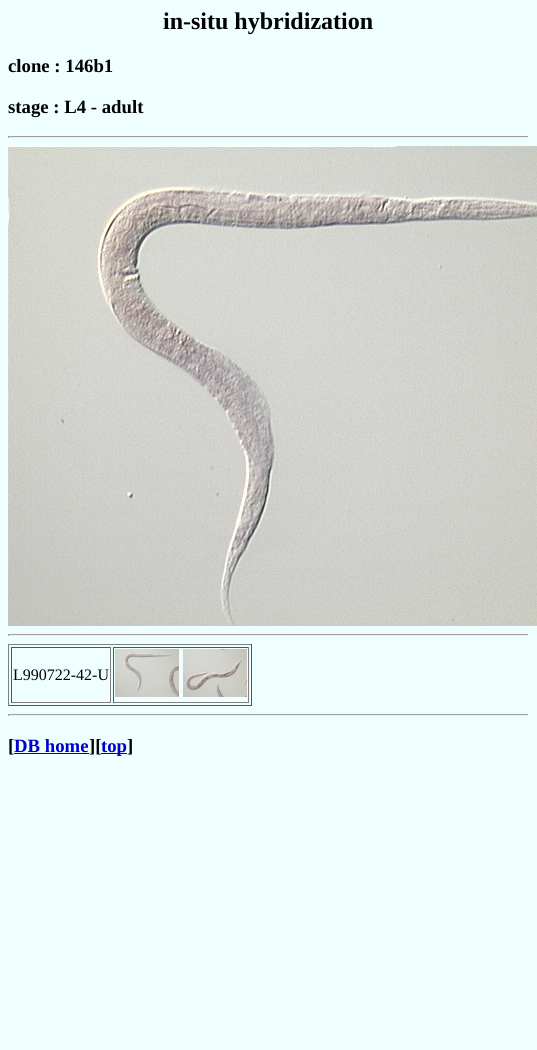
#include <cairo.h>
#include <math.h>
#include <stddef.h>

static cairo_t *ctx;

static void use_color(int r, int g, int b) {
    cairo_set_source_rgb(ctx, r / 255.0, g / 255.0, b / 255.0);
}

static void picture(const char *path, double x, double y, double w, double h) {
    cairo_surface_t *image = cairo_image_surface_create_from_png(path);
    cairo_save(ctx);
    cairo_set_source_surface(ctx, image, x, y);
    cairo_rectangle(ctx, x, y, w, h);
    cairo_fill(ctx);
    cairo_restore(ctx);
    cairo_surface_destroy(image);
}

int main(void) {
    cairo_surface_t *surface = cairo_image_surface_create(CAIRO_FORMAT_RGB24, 537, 1050);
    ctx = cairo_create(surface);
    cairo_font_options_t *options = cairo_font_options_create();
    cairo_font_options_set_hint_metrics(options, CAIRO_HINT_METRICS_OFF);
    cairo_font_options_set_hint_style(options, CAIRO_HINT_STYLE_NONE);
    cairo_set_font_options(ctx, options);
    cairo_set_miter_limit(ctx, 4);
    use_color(239, 255, 255);
    cairo_paint(ctx);
    cairo_select_font_face(ctx, "Liberation Serif", CAIRO_FONT_SLANT_NORMAL, CAIRO_FONT_WEIGHT_BOLD);
    cairo_set_font_size(ctx, 24);
    use_color(0, 0, 0);
    cairo_move_to(ctx, 163, 29);
    cairo_show_text(ctx, "in-situ hybridization");
    cairo_set_font_size(ctx, 18.75);
    cairo_move_to(ctx, 8, 72);
    cairo_show_text(ctx, "clone : 146b1");
    cairo_move_to(ctx, 8, 113);
    cairo_show_text(ctx, "stage : L4 - adult");
    use_color(159, 159, 159);
    cairo_rectangle(ctx, 8, 136, 521, 1);
    cairo_fill(ctx);
    use_color(238, 238, 238);
    cairo_rectangle(ctx, 528, 136, 1, 2);
    cairo_fill(ctx);
    cairo_rectangle(ctx, 8, 137, 521, 1);
    cairo_fill(ctx);
    use_color(159, 159, 159);
    cairo_rectangle(ctx, 8, 136, 1, 2);
    cairo_fill(ctx);
    picture("img1.png", 8, 146, 529, 480);
    cairo_rectangle(ctx, 8, 634, 521, 1);
    cairo_fill(ctx);
    use_color(238, 238, 238);
    cairo_rectangle(ctx, 528, 634, 1, 2);
    cairo_fill(ctx);
    cairo_rectangle(ctx, 8, 635, 521, 1);
    cairo_fill(ctx);
    use_color(159, 159, 159);
    cairo_rectangle(ctx, 8, 634, 1, 2);
    cairo_fill(ctx);
    use_color(128, 128, 128);
    cairo_rectangle(ctx, 8, 644, 244, 1);
    cairo_fill(ctx);
    use_color(85, 85, 85);
    cairo_rectangle(ctx, 251, 644, 1, 62);
    cairo_fill(ctx);
    cairo_rectangle(ctx, 8, 705, 244, 1);
    cairo_fill(ctx);
    use_color(128, 128, 128);
    cairo_rectangle(ctx, 8, 644, 1, 62);
    cairo_fill(ctx);
    use_color(85, 85, 85);
    cairo_rectangle(ctx, 11, 647, 100, 1);
    cairo_fill(ctx);
    use_color(128, 128, 128);
    cairo_rectangle(ctx, 110, 647, 1, 56);
    cairo_fill(ctx);
    cairo_rectangle(ctx, 11, 702, 100, 1);
    cairo_fill(ctx);
    use_color(85, 85, 85);
    cairo_rectangle(ctx, 11, 647, 1, 56);
    cairo_fill(ctx);
    cairo_select_font_face(ctx, "Liberation Serif", CAIRO_FONT_SLANT_NORMAL, CAIRO_FONT_WEIGHT_NORMAL);
    cairo_set_font_size(ctx, 16);
    use_color(0, 0, 0);
    cairo_move_to(ctx, 13, 680);
    cairo_show_text(ctx, "L990722-42-U");
    use_color(85, 85, 85);
    cairo_rectangle(ctx, 113, 647, 136, 1);
    cairo_fill(ctx);
    use_color(128, 128, 128);
    cairo_rectangle(ctx, 248, 647, 1, 56);
    cairo_fill(ctx);
    cairo_rectangle(ctx, 113, 702, 136, 1);
    cairo_fill(ctx);
    use_color(85, 85, 85);
    cairo_rectangle(ctx, 113, 647, 1, 56);
    cairo_fill(ctx);
    picture("img2.png", 115, 649, 64, 48);
    picture("img3.png", 183, 649, 64, 48);
    use_color(159, 159, 159);
    cairo_rectangle(ctx, 8, 714, 521, 1);
    cairo_fill(ctx);
    use_color(238, 238, 238);
    cairo_rectangle(ctx, 528, 714, 1, 2);
    cairo_fill(ctx);
    cairo_rectangle(ctx, 8, 715, 521, 1);
    cairo_fill(ctx);
    use_color(159, 159, 159);
    cairo_rectangle(ctx, 8, 714, 1, 2);
    cairo_fill(ctx);
    cairo_select_font_face(ctx, "Liberation Serif", CAIRO_FONT_SLANT_NORMAL, CAIRO_FONT_WEIGHT_BOLD);
    cairo_set_font_size(ctx, 18.75);
    use_color(0, 0, 0);
    cairo_move_to(ctx, 8, 752);
    cairo_show_text(ctx, "[");
    use_color(0, 0, 204);
    cairo_move_to(ctx, 14, 752);
    cairo_show_text(ctx, "DB home");
    cairo_rectangle(ctx, 14, 753, 75, 1);
    cairo_fill(ctx);
    use_color(0, 0, 0);
    cairo_move_to(ctx, 89, 752);
    cairo_show_text(ctx, "][");
    use_color(0, 0, 204);
    cairo_rectangle(ctx, 101, 753, 26, 1);
    cairo_fill(ctx);
    cairo_move_to(ctx, 101, 752);
    cairo_show_text(ctx, "top");
    use_color(0, 0, 0);
    cairo_move_to(ctx, 127, 752);
    cairo_show_text(ctx, "]");
    cairo_surface_write_to_png(surface, "result.png");
    cairo_font_options_destroy(options);
    cairo_destroy(ctx);
    cairo_surface_destroy(surface);
    return 0;
}
